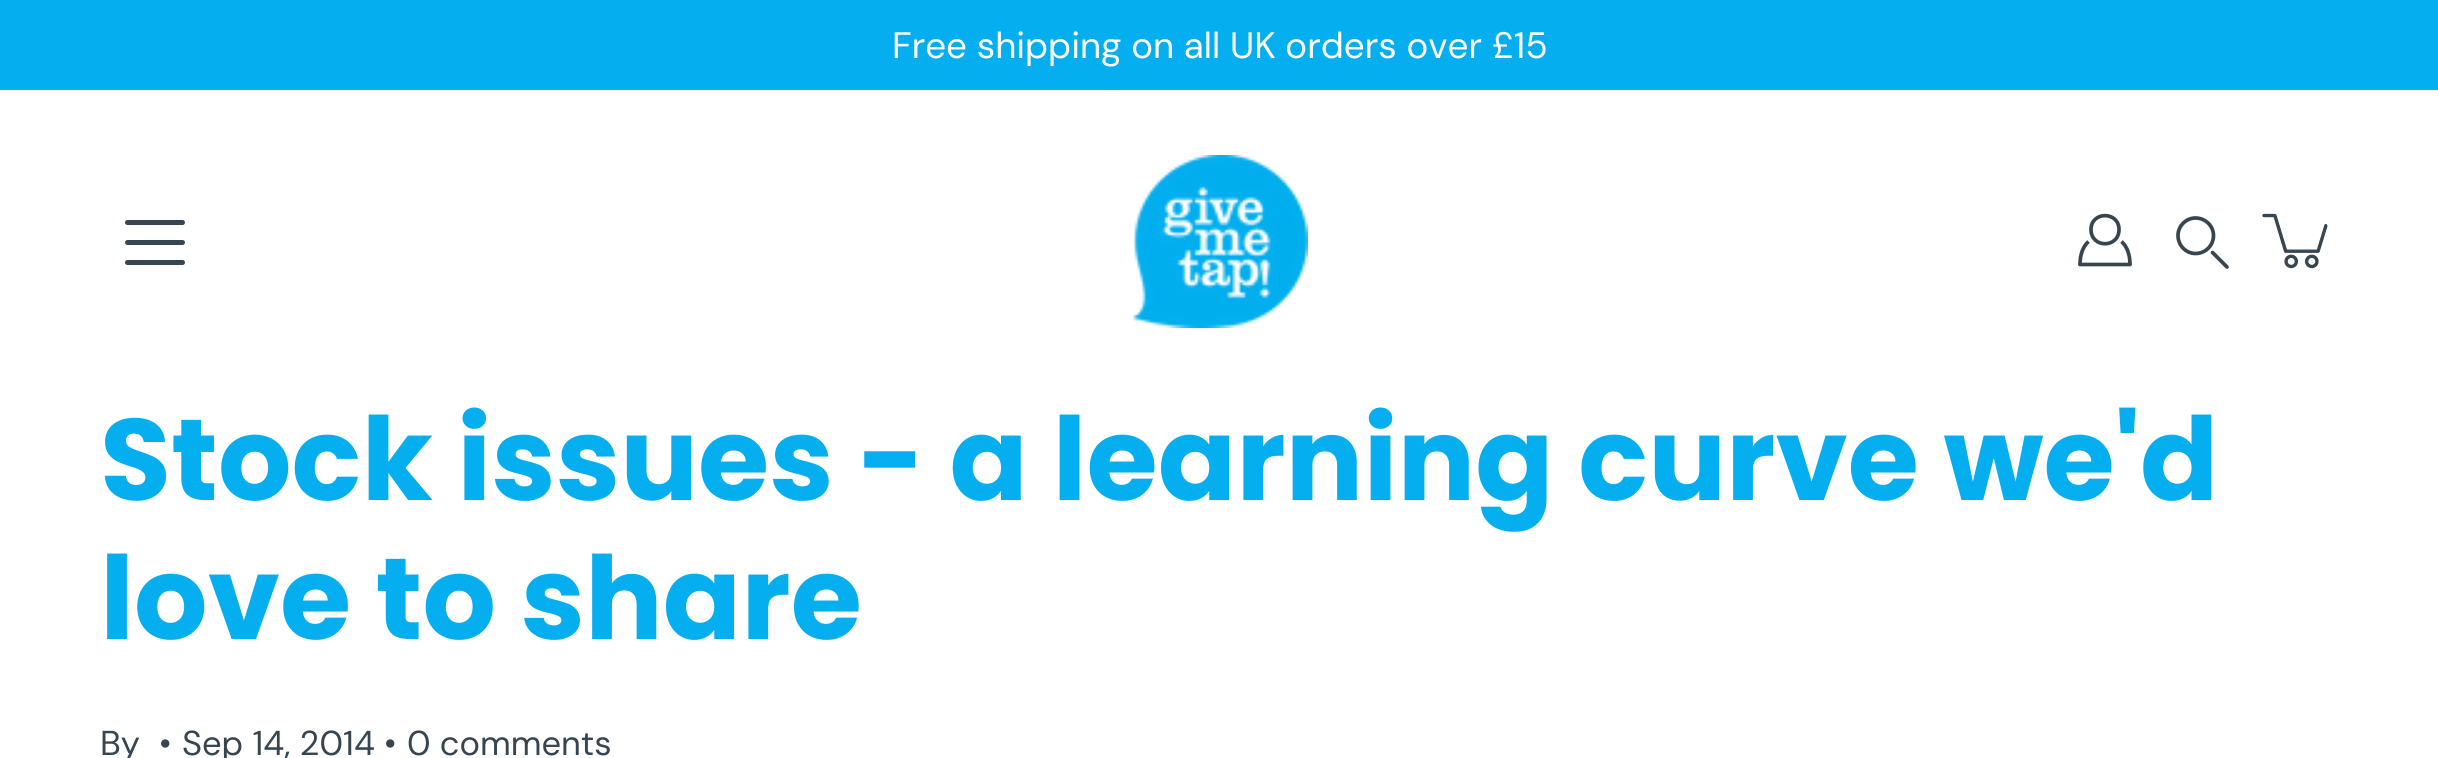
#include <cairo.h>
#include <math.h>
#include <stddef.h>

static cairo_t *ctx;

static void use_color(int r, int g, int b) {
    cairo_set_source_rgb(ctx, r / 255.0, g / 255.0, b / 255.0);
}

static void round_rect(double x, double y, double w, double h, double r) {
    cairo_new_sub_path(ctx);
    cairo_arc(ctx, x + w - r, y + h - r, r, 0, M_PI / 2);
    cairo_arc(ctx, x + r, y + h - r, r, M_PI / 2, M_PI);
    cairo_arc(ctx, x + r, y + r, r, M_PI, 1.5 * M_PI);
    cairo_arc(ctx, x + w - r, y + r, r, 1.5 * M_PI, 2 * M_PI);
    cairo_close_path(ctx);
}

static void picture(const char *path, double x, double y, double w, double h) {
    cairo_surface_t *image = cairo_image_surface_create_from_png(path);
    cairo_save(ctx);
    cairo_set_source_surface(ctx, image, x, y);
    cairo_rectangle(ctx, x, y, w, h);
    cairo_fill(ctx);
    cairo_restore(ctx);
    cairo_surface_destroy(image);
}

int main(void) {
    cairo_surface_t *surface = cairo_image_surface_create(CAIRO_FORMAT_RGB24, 2438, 758);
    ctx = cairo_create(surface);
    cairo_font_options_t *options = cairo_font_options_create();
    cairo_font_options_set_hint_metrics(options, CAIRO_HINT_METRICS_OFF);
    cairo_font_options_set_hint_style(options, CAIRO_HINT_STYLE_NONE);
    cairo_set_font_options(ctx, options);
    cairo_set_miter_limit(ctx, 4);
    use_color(255, 255, 255);
    cairo_paint(ctx);
    use_color(5, 174, 239);
    cairo_rectangle(ctx, 0, 0, 2438, 90);
    cairo_fill(ctx);
    cairo_select_font_face(ctx, "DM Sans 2", CAIRO_FONT_SLANT_NORMAL, CAIRO_FONT_WEIGHT_NORMAL);
    cairo_set_font_size(ctx, 36.75);
    use_color(255, 255, 255);
    cairo_move_to(ctx, 892, 58);
    cairo_show_text(ctx, "Free shipping on all UK orders over £15");
    picture("img1.png", 1133, 155, 175, 173);
    use_color(54, 69, 79);
    round_rect(125, 240, 60, 5, 2.5);
    cairo_fill(ctx);
    round_rect(125, 220, 60, 5, 2.5);
    cairo_fill(ctx);
    round_rect(125, 260, 60, 5, 2.5);
    cairo_fill(ctx);
    cairo_new_path(ctx);
    cairo_move_to(ctx, 2119, 229.5);
    cairo_curve_to(ctx, 2119, 248.5, 2091, 248.5, 2091, 229.5);
    cairo_curve_to(ctx, 2091, 211, 2119, 211, 2119, 229.5);
    cairo_close_path(ctx);
    cairo_set_line_width(ctx, 3.7);
    cairo_stroke(ctx);
    cairo_new_path(ctx);
    cairo_move_to(ctx, 2088.5, 241.5);
    cairo_curve_to(ctx, 2083, 246.5, 2080, 254.5, 2080, 264.5);
    cairo_move_to(ctx, 2121.5, 241.5);
    cairo_curve_to(ctx, 2127, 246.5, 2130, 254.5, 2130, 264.5);
    cairo_set_line_join(ctx, CAIRO_LINE_JOIN_ROUND);
    cairo_stroke(ctx);
    cairo_new_path(ctx);
    cairo_move_to(ctx, 2080, 264.5);
    cairo_line_to(ctx, 2130, 264.5);
    cairo_set_line_cap(ctx, CAIRO_LINE_CAP_ROUND);
    cairo_stroke(ctx);
    cairo_new_path(ctx);
    cairo_move_to(ctx, 2213.5, 235.5);
    cairo_curve_to(ctx, 2213.5, 245.5, 2205.5, 253.5, 2195.5, 253.5);
    cairo_curve_to(ctx, 2186, 253.5, 2178, 245.5, 2178, 235.5);
    cairo_curve_to(ctx, 2178, 226, 2186, 218, 2195.5, 218);
    cairo_curve_to(ctx, 2205.5, 218, 2213.5, 226, 2213.5, 235.5);
    cairo_close_path(ctx);
    cairo_set_line_cap(ctx, CAIRO_LINE_CAP_BUTT);
    cairo_set_line_join(ctx, CAIRO_LINE_JOIN_MITER);
    cairo_stroke(ctx);
    cairo_new_path(ctx);
    cairo_move_to(ctx, 2212.5, 252.5);
    cairo_line_to(ctx, 2227, 267);
    cairo_set_line_cap(ctx, CAIRO_LINE_CAP_ROUND);
    cairo_stroke(ctx);
    picture("img2.png", 2262, 213, 66, 56);
    cairo_select_font_face(ctx, "Poppins", CAIRO_FONT_SLANT_NORMAL, CAIRO_FONT_WEIGHT_BOLD);
    cairo_set_font_size(ctx, 115.5);
    use_color(5, 174, 239);
    cairo_move_to(ctx, 100, 500);
    cairo_show_text(ctx, "Stock issues - a learning curve we'd");
    cairo_move_to(ctx, 100, 639);
    cairo_show_text(ctx, "love to share");
    cairo_select_font_face(ctx, "DM Sans", CAIRO_FONT_SLANT_NORMAL, CAIRO_FONT_WEIGHT_NORMAL);
    cairo_set_font_size(ctx, 34.5);
    use_color(54, 69, 79);
    cairo_move_to(ctx, 100, 755);
    cairo_show_text(ctx, "By");
    cairo_move_to(ctx, 159, 755);
    cairo_show_text(ctx, "•");
    cairo_move_to(ctx, 182, 755);
    cairo_show_text(ctx, "Sep 14, 2014");
    cairo_move_to(ctx, 384, 755);
    cairo_show_text(ctx, "•");
    cairo_move_to(ctx, 407, 755);
    cairo_show_text(ctx, "0 comments");
    cairo_surface_write_to_png(surface, "result.png");
    cairo_font_options_destroy(options);
    cairo_destroy(ctx);
    cairo_surface_destroy(surface);
    return 0;
}
